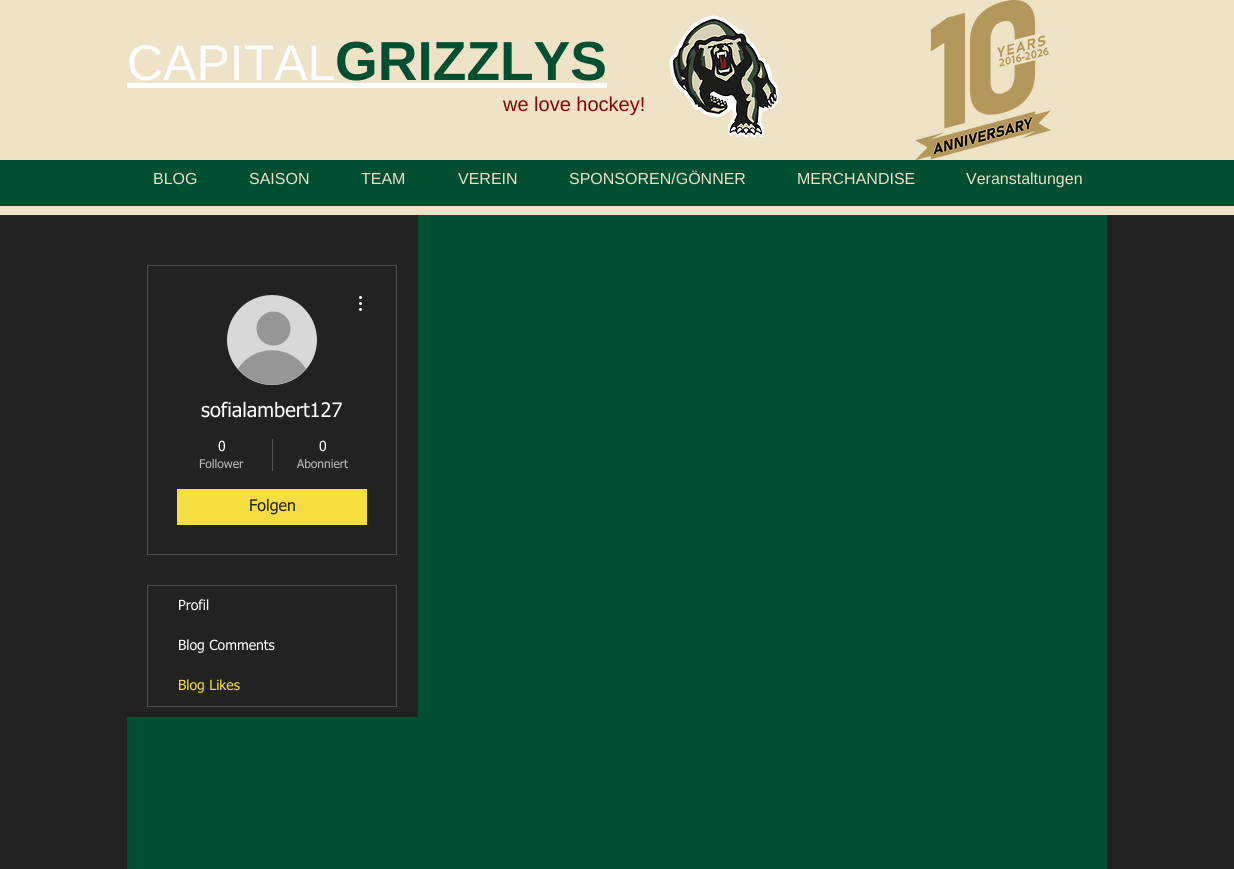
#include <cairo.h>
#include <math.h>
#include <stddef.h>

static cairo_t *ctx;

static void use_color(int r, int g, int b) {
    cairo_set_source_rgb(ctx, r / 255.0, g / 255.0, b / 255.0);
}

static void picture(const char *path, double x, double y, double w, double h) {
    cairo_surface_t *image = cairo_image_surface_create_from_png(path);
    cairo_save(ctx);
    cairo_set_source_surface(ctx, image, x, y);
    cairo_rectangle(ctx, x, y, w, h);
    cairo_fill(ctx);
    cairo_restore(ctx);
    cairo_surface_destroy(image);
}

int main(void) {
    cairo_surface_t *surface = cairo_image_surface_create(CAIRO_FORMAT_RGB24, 1234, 869);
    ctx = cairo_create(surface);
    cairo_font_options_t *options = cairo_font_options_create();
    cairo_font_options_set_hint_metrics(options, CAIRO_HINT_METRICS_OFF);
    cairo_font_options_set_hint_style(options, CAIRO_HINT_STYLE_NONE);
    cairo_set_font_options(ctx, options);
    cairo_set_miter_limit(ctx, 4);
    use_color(34, 34, 34);
    cairo_paint(ctx);
    use_color(238, 227, 199);
    cairo_rectangle(ctx, 0, 0, 1234, 215);
    cairo_fill(ctx);
    cairo_select_font_face(ctx, "Liberation Sans", CAIRO_FONT_SLANT_NORMAL, CAIRO_FONT_WEIGHT_NORMAL);
    cairo_set_font_size(ctx, 50);
    use_color(255, 255, 255);
    cairo_move_to(ctx, 127, 80);
    cairo_show_text(ctx, "CAPITAL");
    cairo_rectangle(ctx, 127, 83, 480, 5);
    cairo_fill(ctx);
    cairo_select_font_face(ctx, "Liberation Sans", CAIRO_FONT_SLANT_NORMAL, CAIRO_FONT_WEIGHT_BOLD);
    cairo_set_font_size(ctx, 55);
    use_color(0, 79, 48);
    cairo_move_to(ctx, 335, 80);
    cairo_show_text(ctx, "GRIZZLYS");
    picture("img1.png", 669, 15, 111, 123);
    picture("img2.png", 915, 0, 136, 160);
    cairo_select_font_face(ctx, "Liberation Sans", CAIRO_FONT_SLANT_NORMAL, CAIRO_FONT_WEIGHT_NORMAL);
    cairo_set_font_size(ctx, 20);
    use_color(139, 0, 0);
    cairo_move_to(ctx, 503, 111);
    cairo_show_text(ctx, "we love hockey!");
    use_color(0, 79, 48);
    cairo_rectangle(ctx, 0, 160, 1234, 46);
    cairo_fill(ctx);
    cairo_set_font_size(ctx, 16);
    use_color(238, 227, 199);
    cairo_move_to(ctx, 153, 184);
    cairo_show_text(ctx, "BLOG");
    cairo_move_to(ctx, 249, 184);
    cairo_show_text(ctx, "SAISON");
    cairo_move_to(ctx, 361, 184);
    cairo_show_text(ctx, "TEAM");
    cairo_move_to(ctx, 458, 184);
    cairo_show_text(ctx, "VEREIN");
    cairo_move_to(ctx, 569, 184);
    cairo_show_text(ctx, "SPONSOREN/GÖNNER");
    cairo_move_to(ctx, 797, 184);
    cairo_show_text(ctx, "MERCHANDISE");
    cairo_move_to(ctx, 966, 184);
    cairo_show_text(ctx, "Veranstaltungen");
    use_color(0, 79, 48);
    cairo_rectangle(ctx, 127, 215, 980, 654);
    cairo_fill(ctx);
    use_color(34, 34, 34);
    cairo_rectangle(ctx, 127, 215, 291, 502);
    cairo_fill(ctx);
    cairo_rectangle(ctx, 147.5, 265.5, 249, 289);
    use_color(78, 78, 78);
    cairo_set_line_width(ctx, 1);
    cairo_stroke(ctx);
    use_color(216, 216, 216);
    cairo_arc(ctx, 272, 340, 45, 0, 2 * M_PI);
    cairo_fill(ctx);
    use_color(150, 150, 150);
    cairo_arc(ctx, 273.5, 328.5, 17, 0, 2 * M_PI);
    cairo_fill(ctx);
    cairo_new_path(ctx);
    cairo_move_to(ctx, 306, 369);
    cairo_curve_to(ctx, 288, 390, 256, 390, 238, 369);
    cairo_curve_to(ctx, 253, 344, 291, 344, 306, 369);
    cairo_close_path(ctx);
    cairo_fill(ctx);
    picture("img3.png", 359, 296, 3, 15);
    cairo_select_font_face(ctx, "tahoma", CAIRO_FONT_SLANT_NORMAL, CAIRO_FONT_WEIGHT_NORMAL);
    cairo_set_font_size(ctx, 20);
    use_color(255, 255, 255);
    cairo_move_to(ctx, 201, 417);
    cairo_show_text(ctx, "sofialambert127");
    cairo_set_font_size(ctx, 14);
    cairo_move_to(ctx, 218, 451);
    cairo_show_text(ctx, "0");
    cairo_set_font_size(ctx, 12);
    use_color(189, 189, 189);
    cairo_move_to(ctx, 199, 468);
    cairo_show_text(ctx, "Follower");
    use_color(78, 78, 78);
    cairo_rectangle(ctx, 272, 439, 1, 32);
    cairo_fill(ctx);
    cairo_set_font_size(ctx, 14);
    use_color(255, 255, 255);
    cairo_move_to(ctx, 319, 451);
    cairo_show_text(ctx, "0");
    cairo_set_font_size(ctx, 12);
    use_color(189, 189, 189);
    cairo_move_to(ctx, 297, 468);
    cairo_show_text(ctx, "Abonniert");
    use_color(245, 221, 66);
    cairo_rectangle(ctx, 177, 489, 190, 36);
    cairo_fill(ctx);
    cairo_set_font_size(ctx, 16);
    use_color(34, 34, 34);
    cairo_move_to(ctx, 249, 511);
    cairo_show_text(ctx, "Folgen");
    cairo_rectangle(ctx, 147.5, 585.5, 249, 121);
    use_color(78, 78, 78);
    cairo_stroke(ctx);
    cairo_set_font_size(ctx, 14);
    use_color(255, 255, 255);
    cairo_move_to(ctx, 178, 610);
    cairo_show_text(ctx, "Profil");
    cairo_move_to(ctx, 178, 650);
    cairo_show_text(ctx, "Blog Comments");
    use_color(245, 221, 66);
    cairo_move_to(ctx, 178, 690);
    cairo_show_text(ctx, "Blog Likes");
    cairo_surface_write_to_png(surface, "result.png");
    cairo_font_options_destroy(options);
    cairo_destroy(ctx);
    cairo_surface_destroy(surface);
    return 0;
}
